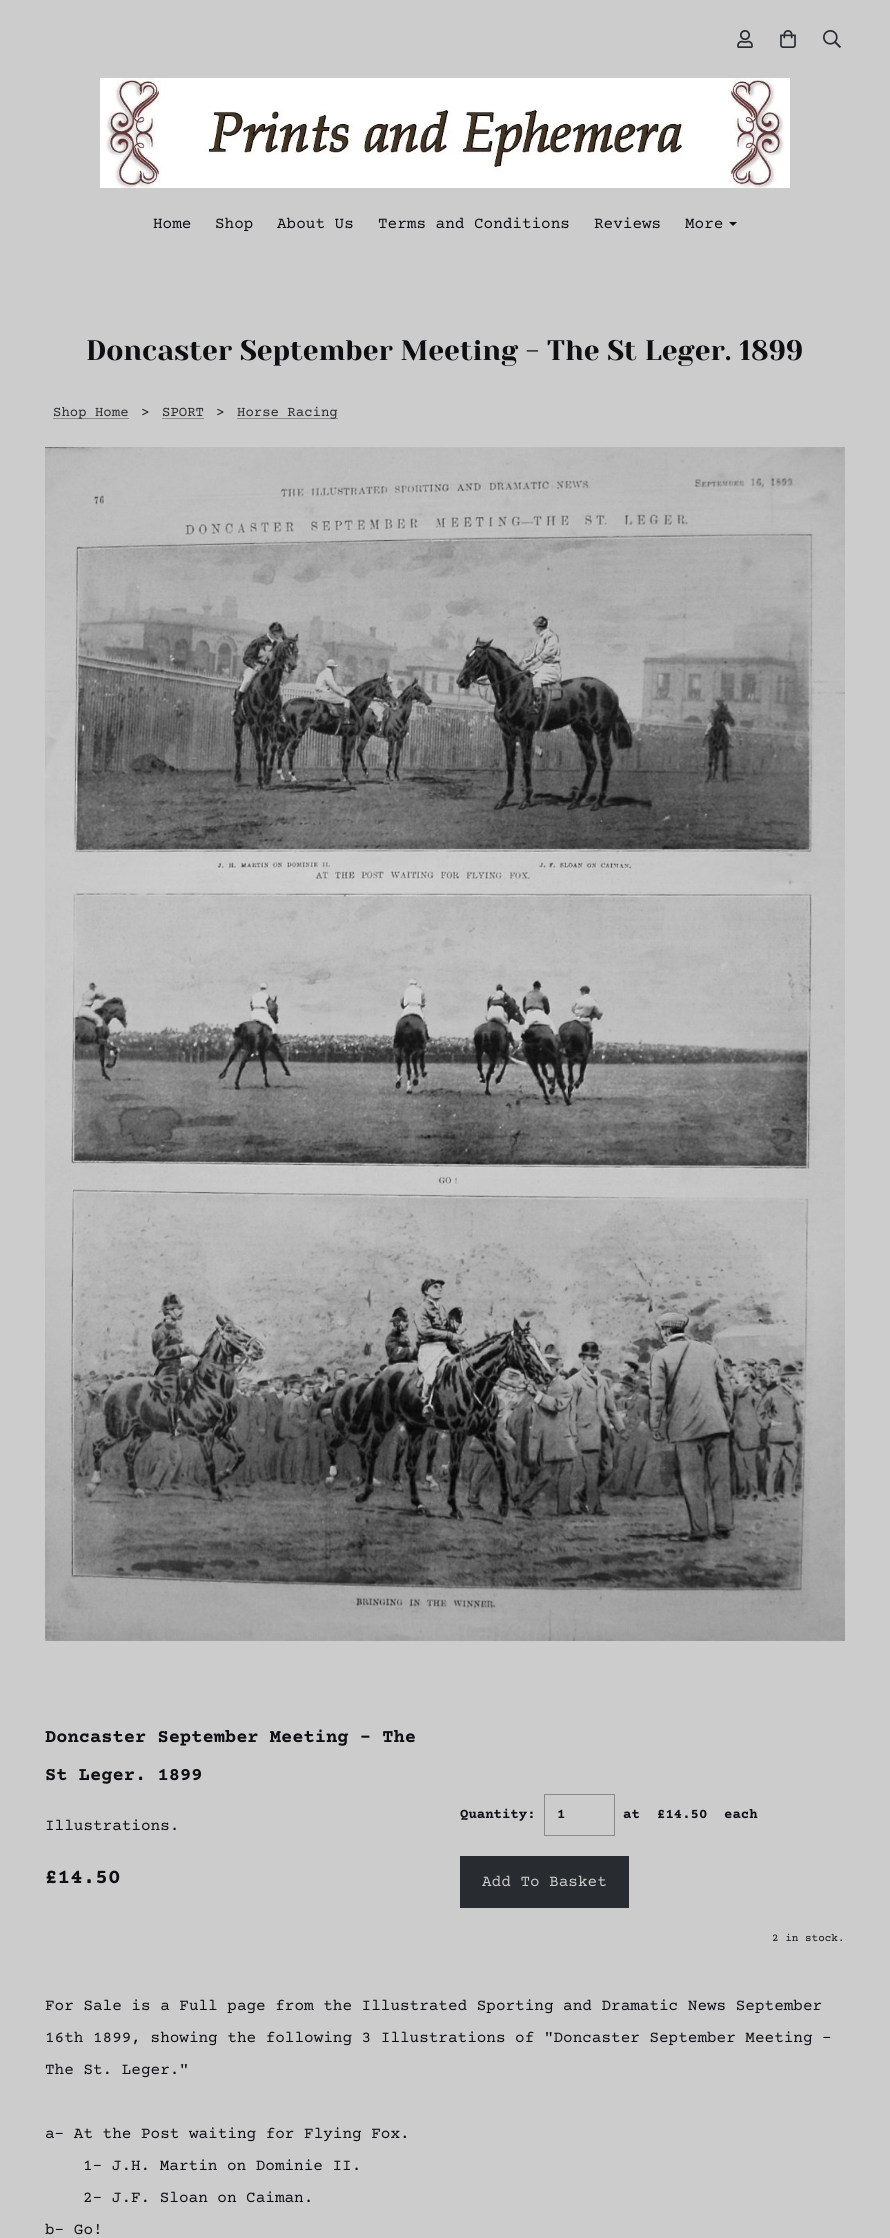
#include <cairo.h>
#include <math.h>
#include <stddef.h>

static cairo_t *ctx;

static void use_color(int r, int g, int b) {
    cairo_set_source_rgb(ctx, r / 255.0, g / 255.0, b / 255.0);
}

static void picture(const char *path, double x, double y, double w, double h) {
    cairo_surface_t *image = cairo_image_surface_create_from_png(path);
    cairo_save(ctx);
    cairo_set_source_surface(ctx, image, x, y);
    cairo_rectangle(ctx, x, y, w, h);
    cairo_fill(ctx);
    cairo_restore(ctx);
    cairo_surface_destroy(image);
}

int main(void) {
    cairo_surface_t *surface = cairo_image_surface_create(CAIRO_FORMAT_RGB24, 890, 2238);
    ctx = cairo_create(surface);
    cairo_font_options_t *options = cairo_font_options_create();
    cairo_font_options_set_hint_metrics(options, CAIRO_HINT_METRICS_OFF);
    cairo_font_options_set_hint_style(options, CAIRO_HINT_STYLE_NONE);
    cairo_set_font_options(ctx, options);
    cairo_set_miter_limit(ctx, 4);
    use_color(204, 204, 204);
    cairo_paint(ctx);
    picture("img1.png", 737, 30, 16, 18);
    picture("img2.png", 780, 30, 16, 18);
    picture("img3.png", 823, 30, 18, 18);
    picture("img4.png", 100, 78, 690, 110);
    cairo_select_font_face(ctx, "Courier Prime", CAIRO_FONT_SLANT_NORMAL, CAIRO_FONT_WEIGHT_NORMAL);
    cairo_set_font_size(ctx, 16);
    use_color(14, 15, 18);
    cairo_move_to(ctx, 153, 228);
    cairo_show_text(ctx, "Home");
    cairo_move_to(ctx, 215, 228);
    cairo_show_text(ctx, "Shop");
    cairo_move_to(ctx, 277, 228);
    cairo_show_text(ctx, "About Us");
    cairo_move_to(ctx, 378, 228);
    cairo_show_text(ctx, "Terms and Conditions");
    cairo_move_to(ctx, 594, 228);
    cairo_show_text(ctx, "Reviews");
    cairo_move_to(ctx, 685, 228);
    cairo_show_text(ctx, "More");
    cairo_new_path(ctx);
    cairo_move_to(ctx, 729, 222);
    cairo_line_to(ctx, 737, 222);
    cairo_line_to(ctx, 733, 226);
    cairo_close_path(ctx);
    cairo_fill(ctx);
    cairo_select_font_face(ctx, "Yeseva One", CAIRO_FONT_SLANT_NORMAL, CAIRO_FONT_WEIGHT_NORMAL);
    cairo_set_font_size(ctx, 28.2);
    cairo_move_to(ctx, 86, 360);
    cairo_show_text(ctx, "Doncaster September Meeting - The St Leger. 1899");
    use_color(138, 140, 142);
    cairo_rectangle(ctx, 53, 418, 76, 1);
    cairo_fill(ctx);
    cairo_select_font_face(ctx, "Courier Prime", CAIRO_FONT_SLANT_NORMAL, CAIRO_FONT_WEIGHT_NORMAL);
    cairo_set_font_size(ctx, 14);
    use_color(40, 43, 48);
    cairo_move_to(ctx, 53, 416);
    cairo_show_text(ctx, "Shop Home");
    use_color(14, 15, 18);
    cairo_move_to(ctx, 141, 416);
    cairo_show_text(ctx, ">");
    use_color(40, 43, 48);
    cairo_move_to(ctx, 162, 416);
    cairo_show_text(ctx, "SPORT");
    use_color(138, 140, 142);
    cairo_rectangle(ctx, 162, 418, 42, 1);
    cairo_fill(ctx);
    use_color(14, 15, 18);
    cairo_move_to(ctx, 216, 416);
    cairo_show_text(ctx, ">");
    use_color(138, 140, 142);
    cairo_rectangle(ctx, 237, 418, 101, 1);
    cairo_fill(ctx);
    use_color(40, 43, 48);
    cairo_move_to(ctx, 237, 416);
    cairo_show_text(ctx, "Horse Racing");
    picture("img5.png", 45, 447, 800, 1194);
    cairo_select_font_face(ctx, "Courier Prime", CAIRO_FONT_SLANT_NORMAL, CAIRO_FONT_WEIGHT_BOLD);
    cairo_set_font_size(ctx, 18.75);
    use_color(14, 15, 18);
    cairo_move_to(ctx, 45, 1742);
    cairo_show_text(ctx, "Doncaster September Meeting - The");
    cairo_move_to(ctx, 45, 1780);
    cairo_show_text(ctx, "St Leger. 1899");
    cairo_select_font_face(ctx, "Courier Prime", CAIRO_FONT_SLANT_NORMAL, CAIRO_FONT_WEIGHT_NORMAL);
    cairo_set_font_size(ctx, 16);
    cairo_move_to(ctx, 45, 1830);
    cairo_show_text(ctx, "Illustrations.");
    cairo_select_font_face(ctx, "Courier Prime", CAIRO_FONT_SLANT_NORMAL, CAIRO_FONT_WEIGHT_BOLD);
    cairo_set_font_size(ctx, 21);
    cairo_move_to(ctx, 45, 1883);
    cairo_show_text(ctx, "£14.50");
    cairo_set_font_size(ctx, 14);
    cairo_move_to(ctx, 460, 1818);
    cairo_show_text(ctx, "Quantity:");
    cairo_rectangle(ctx, 544.5, 1794.5, 70, 41);
    use_color(138, 138, 138);
    cairo_set_line_width(ctx, 1);
    cairo_stroke(ctx);
    use_color(14, 15, 18);
    cairo_move_to(ctx, 557, 1818);
    cairo_show_text(ctx, "1");
    cairo_move_to(ctx, 623, 1818);
    cairo_show_text(ctx, "at");
    cairo_move_to(ctx, 657, 1818);
    cairo_show_text(ctx, "£14.50");
    cairo_move_to(ctx, 724, 1818);
    cairo_show_text(ctx, "each");
    use_color(40, 43, 48);
    cairo_rectangle(ctx, 460, 1856, 169, 52);
    cairo_fill(ctx);
    cairo_select_font_face(ctx, "Courier Prime", CAIRO_FONT_SLANT_NORMAL, CAIRO_FONT_WEIGHT_NORMAL);
    cairo_set_font_size(ctx, 16);
    use_color(204, 204, 204);
    cairo_move_to(ctx, 482, 1886);
    cairo_show_text(ctx, "Add To Basket");
    cairo_set_font_size(ctx, 11);
    use_color(14, 15, 18);
    cairo_move_to(ctx, 772, 1941);
    cairo_show_text(ctx, "2 in stock.");
    cairo_set_font_size(ctx, 16);
    cairo_move_to(ctx, 45, 2010);
    cairo_show_text(ctx, "For Sale is a Full page from the Illustrated Sporting and Dramatic News September");
    cairo_move_to(ctx, 45, 2042);
    cairo_show_text(ctx, "16th 1899, showing the following 3 Illustrations of \"Doncaster September Meeting -");
    cairo_move_to(ctx, 45, 2074);
    cairo_show_text(ctx, "The St. Leger.\"");
    cairo_move_to(ctx, 45, 2138);
    cairo_show_text(ctx, "a- At the Post waiting for Flying Fox.");
    cairo_move_to(ctx, 83, 2170);
    cairo_show_text(ctx, "1- J.H. Martin on Dominie II.");
    cairo_move_to(ctx, 83, 2202);
    cairo_show_text(ctx, "2- J.F. Sloan on Caiman.");
    cairo_move_to(ctx, 45, 2234);
    cairo_show_text(ctx, "b- Go!");
    cairo_surface_write_to_png(surface, "result.png");
    cairo_font_options_destroy(options);
    cairo_destroy(ctx);
    cairo_surface_destroy(surface);
    return 0;
}
